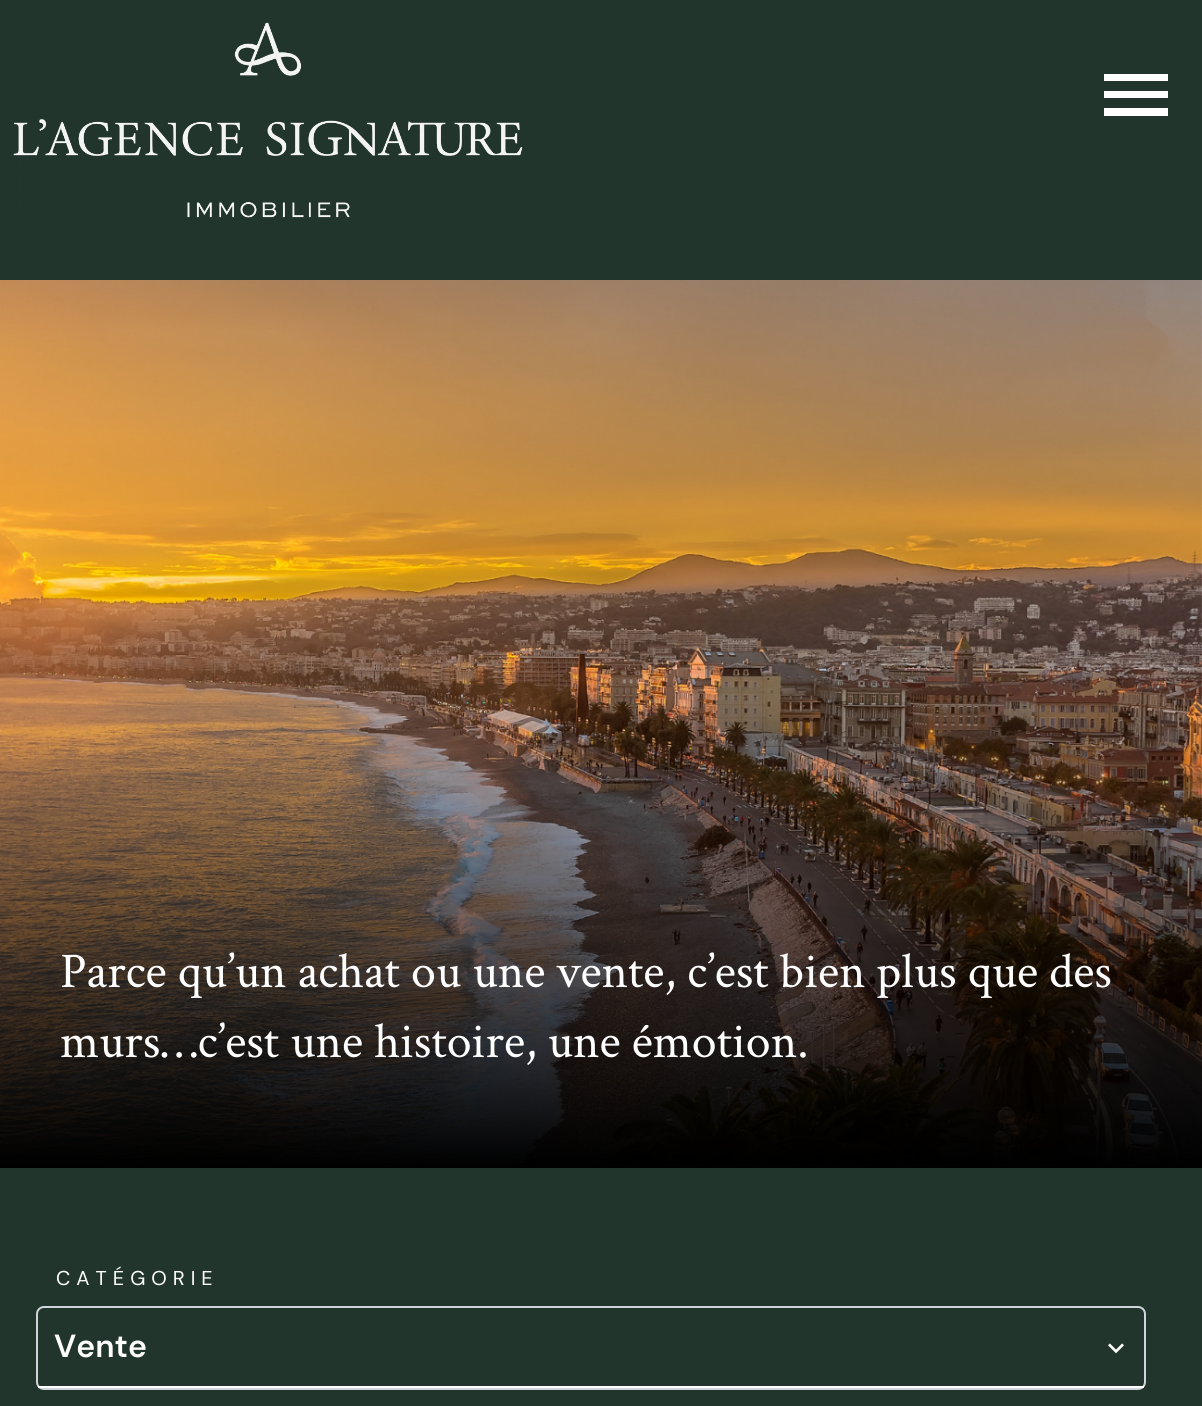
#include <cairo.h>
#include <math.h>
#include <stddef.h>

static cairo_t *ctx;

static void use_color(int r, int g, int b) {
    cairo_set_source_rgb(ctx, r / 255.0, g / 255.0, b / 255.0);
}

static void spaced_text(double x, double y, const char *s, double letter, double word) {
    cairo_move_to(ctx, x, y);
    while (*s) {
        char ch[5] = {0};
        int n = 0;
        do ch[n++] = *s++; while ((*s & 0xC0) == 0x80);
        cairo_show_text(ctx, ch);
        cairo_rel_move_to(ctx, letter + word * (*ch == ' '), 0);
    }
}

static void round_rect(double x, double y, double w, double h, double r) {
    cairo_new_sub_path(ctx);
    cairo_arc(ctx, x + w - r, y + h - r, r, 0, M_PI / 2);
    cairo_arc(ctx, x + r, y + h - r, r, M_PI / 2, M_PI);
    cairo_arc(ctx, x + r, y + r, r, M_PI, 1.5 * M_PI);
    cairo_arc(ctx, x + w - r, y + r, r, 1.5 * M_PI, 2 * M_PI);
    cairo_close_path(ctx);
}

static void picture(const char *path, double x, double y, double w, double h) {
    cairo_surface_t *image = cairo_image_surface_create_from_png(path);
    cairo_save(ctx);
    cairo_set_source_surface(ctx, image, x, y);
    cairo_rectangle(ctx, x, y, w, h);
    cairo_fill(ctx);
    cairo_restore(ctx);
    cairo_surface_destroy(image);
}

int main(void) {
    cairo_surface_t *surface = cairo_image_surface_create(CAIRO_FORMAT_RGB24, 1202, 1406);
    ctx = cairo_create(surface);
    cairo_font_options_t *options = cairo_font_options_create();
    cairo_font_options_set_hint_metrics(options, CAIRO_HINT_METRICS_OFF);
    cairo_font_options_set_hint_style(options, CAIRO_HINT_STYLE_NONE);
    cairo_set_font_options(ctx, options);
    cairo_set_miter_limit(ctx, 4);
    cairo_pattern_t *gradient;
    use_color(255, 255, 255);
    cairo_paint(ctx);
    use_color(33, 53, 44);
    cairo_rectangle(ctx, 0, 0, 1202, 280);
    cairo_fill(ctx);
    picture("img1.png", 13, 22, 510, 196);
    use_color(255, 255, 255);
    cairo_new_path(ctx);
    cairo_move_to(ctx, 1104, 74);
    cairo_line_to(ctx, 1168, 74);
    cairo_line_to(ctx, 1168, 81);
    cairo_line_to(ctx, 1104, 81);
    cairo_close_path(ctx);
    cairo_move_to(ctx, 1104, 91);
    cairo_line_to(ctx, 1168, 91);
    cairo_line_to(ctx, 1168, 98);
    cairo_line_to(ctx, 1104, 98);
    cairo_close_path(ctx);
    cairo_move_to(ctx, 1104, 108);
    cairo_line_to(ctx, 1168, 108);
    cairo_line_to(ctx, 1168, 116);
    cairo_line_to(ctx, 1104, 116);
    cairo_close_path(ctx);
    cairo_fill(ctx);
    picture("img2.png", 0, 280, 1202, 885);
    gradient = cairo_pattern_create_linear(601, 1168, 601, 168);
    cairo_pattern_add_color_stop_rgba(gradient, 0, 0, 0, 0, 1);
    cairo_pattern_add_color_stop_rgba(gradient, 0.46, 0, 0, 0, 0);
    cairo_set_source(ctx, gradient);
    cairo_pattern_destroy(gradient);
    cairo_rectangle(ctx, 0, 718, 1202, 450);
    cairo_fill(ctx);
    cairo_select_font_face(ctx, "Crimson Text", CAIRO_FONT_SLANT_NORMAL, CAIRO_FONT_WEIGHT_NORMAL);
    cairo_set_font_size(ctx, 50);
    use_color(255, 255, 255);
    cairo_move_to(ctx, 60, 987);
    cairo_show_text(ctx, "Parce qu’un achat ou une vente, c’est bien plus que des");
    cairo_move_to(ctx, 60, 1057);
    cairo_show_text(ctx, "murs…c’est une histoire, une émotion.");
    use_color(33, 53, 44);
    cairo_rectangle(ctx, 0, 1168, 1202, 238);
    cairo_fill(ctx);
    cairo_select_font_face(ctx, "DM Sans", CAIRO_FONT_SLANT_NORMAL, CAIRO_FONT_WEIGHT_NORMAL);
    cairo_set_font_size(ctx, 20);
    use_color(255, 255, 255);
    spaced_text(56, 1285, "CATÉGORIE", 6, 0);
    round_rect(37, 1307, 1108, 82, 7);
    use_color(206, 212, 218);
    cairo_stroke(ctx);
    use_color(255, 255, 255);
    cairo_rectangle(ctx, 38, 1386, 1106, 2);
    cairo_fill(ctx);
    cairo_select_font_face(ctx, "DM Sans SemiBold", CAIRO_FONT_SLANT_NORMAL, CAIRO_FONT_WEIGHT_NORMAL);
    cairo_set_font_size(ctx, 32);
    cairo_move_to(ctx, 54, 1357);
    cairo_show_text(ctx, "Vente");
    picture("img3.png", 1108, 1343, 16, 11);
    cairo_surface_write_to_png(surface, "result.png");
    cairo_font_options_destroy(options);
    cairo_destroy(ctx);
    cairo_surface_destroy(surface);
    return 0;
}
